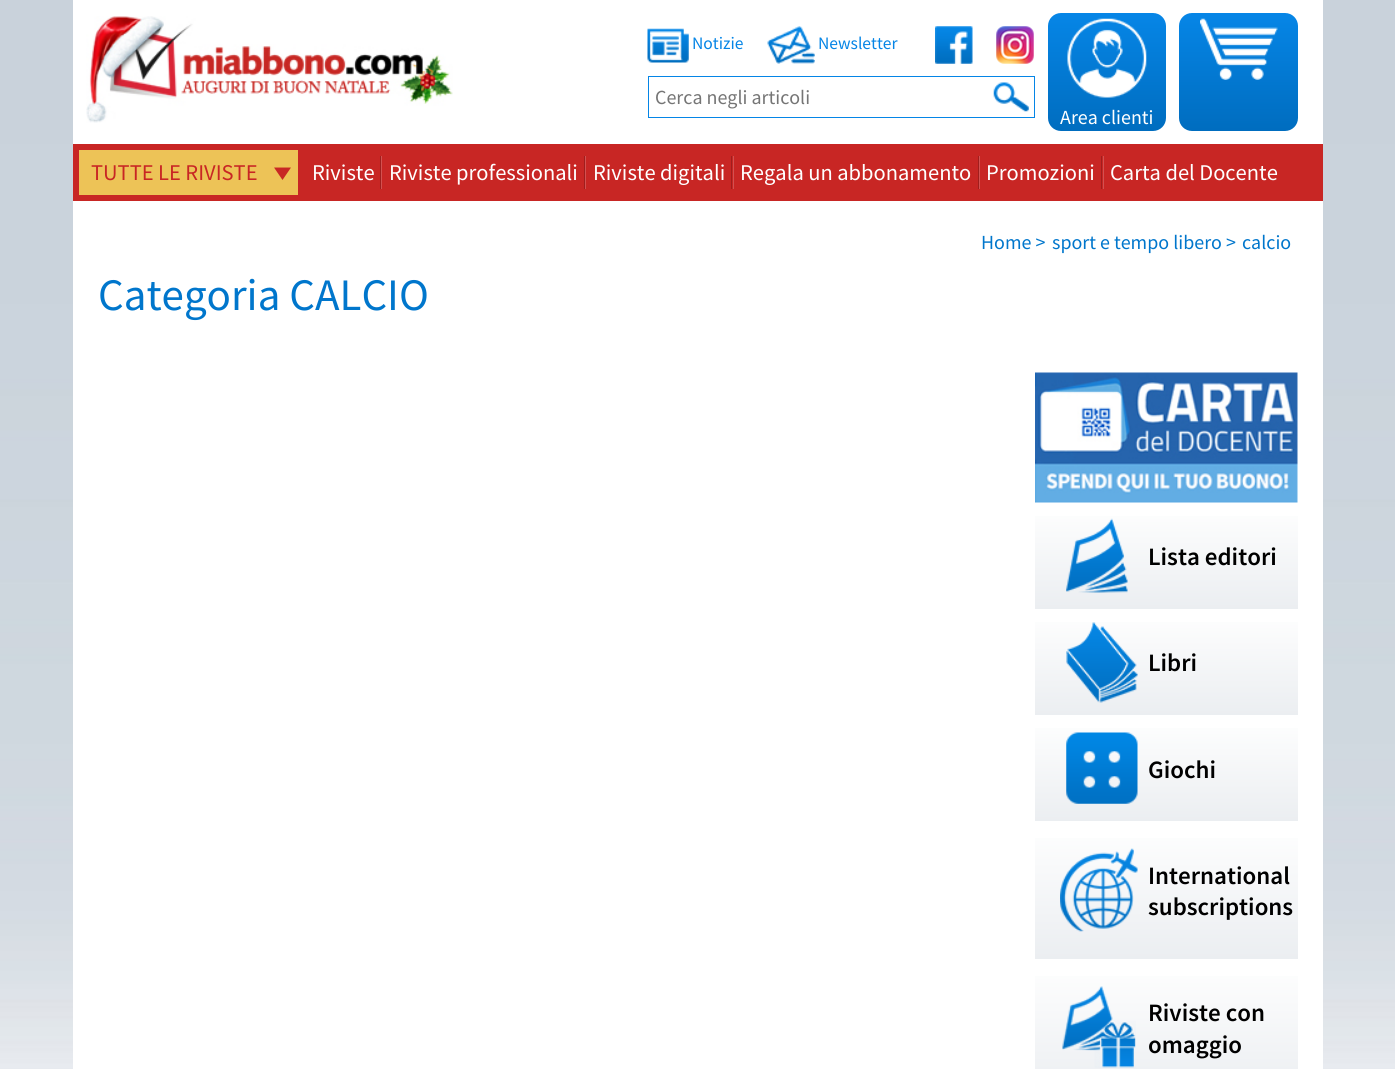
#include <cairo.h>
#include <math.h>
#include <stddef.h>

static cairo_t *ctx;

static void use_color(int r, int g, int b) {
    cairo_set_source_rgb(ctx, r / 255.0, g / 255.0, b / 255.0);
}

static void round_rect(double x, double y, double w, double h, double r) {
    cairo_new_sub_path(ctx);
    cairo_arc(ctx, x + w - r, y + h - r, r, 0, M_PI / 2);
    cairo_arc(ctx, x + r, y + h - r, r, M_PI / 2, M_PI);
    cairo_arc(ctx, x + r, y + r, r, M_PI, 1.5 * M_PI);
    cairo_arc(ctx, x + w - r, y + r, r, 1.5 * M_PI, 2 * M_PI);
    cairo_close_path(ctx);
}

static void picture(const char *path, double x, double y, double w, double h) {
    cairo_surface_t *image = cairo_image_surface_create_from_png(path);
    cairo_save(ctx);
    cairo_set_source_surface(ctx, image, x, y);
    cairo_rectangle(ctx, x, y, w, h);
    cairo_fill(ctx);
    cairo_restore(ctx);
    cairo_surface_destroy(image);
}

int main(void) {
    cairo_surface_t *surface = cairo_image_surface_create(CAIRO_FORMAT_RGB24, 1395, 1069);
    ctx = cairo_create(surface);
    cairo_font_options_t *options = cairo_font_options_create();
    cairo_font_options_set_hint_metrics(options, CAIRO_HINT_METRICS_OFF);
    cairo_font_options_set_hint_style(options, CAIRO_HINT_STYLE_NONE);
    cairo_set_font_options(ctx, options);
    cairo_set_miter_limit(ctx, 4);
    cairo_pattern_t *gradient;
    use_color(255, 255, 255);
    cairo_paint(ctx);
    picture("img1.png", 0, 0, 1395, 1069);
    use_color(255, 255, 255);
    cairo_rectangle(ctx, 73, 0, 1250, 1069);
    cairo_fill(ctx);
    picture("img2.png", 86, 16, 367, 107);
    picture("img3.png", 647, 28, 42, 35);
    cairo_select_font_face(ctx, "Source Sans Pro", CAIRO_FONT_SLANT_NORMAL, CAIRO_FONT_WEIGHT_NORMAL);
    cairo_set_font_size(ctx, 17.5);
    use_color(5, 133, 230);
    cairo_move_to(ctx, 692, 49);
    cairo_show_text(ctx, "Notizie");
    picture("img4.png", 767, 26, 48, 38);
    cairo_move_to(ctx, 818, 49);
    cairo_show_text(ctx, "Newsletter");
    picture("img5.png", 935, 26, 38, 38);
    picture("img6.png", 996, 26, 38, 38);
    cairo_rectangle(ctx, 648.5, 76.5, 386, 41);
    cairo_set_line_width(ctx, 1);
    cairo_stroke(ctx);
    cairo_set_font_size(ctx, 20);
    use_color(117, 117, 117);
    cairo_move_to(ctx, 655, 104);
    cairo_show_text(ctx, "Cerca negli articoli");
    picture("img7.png", 993, 82, 36, 30);
    gradient = cairo_pattern_create_linear(1238, 12, 1238, 131);
    cairo_pattern_add_color_stop_rgba(gradient, 0, 0.024, 0.525, 0.906, 1);
    cairo_pattern_add_color_stop_rgba(gradient, 1, 0, 0.427, 0.749, 1);
    cairo_set_source(ctx, gradient);
    cairo_pattern_destroy(gradient);
    round_rect(1179, 13, 119, 118, 13);
    cairo_fill(ctx);
    picture("img8.png", 1200, 18, 78, 62);
    gradient = cairo_pattern_create_linear(1107, 12, 1107, 131);
    cairo_pattern_add_color_stop_rgba(gradient, 0, 0.024, 0.525, 0.906, 1);
    cairo_pattern_add_color_stop_rgba(gradient, 1, 0, 0.427, 0.749, 1);
    cairo_set_source(ctx, gradient);
    cairo_pattern_destroy(gradient);
    round_rect(1048, 13, 118, 118, 13);
    cairo_fill(ctx);
    picture("img9.png", 1067, 18, 80, 80);
    use_color(255, 255, 255);
    cairo_move_to(ctx, 1060, 124);
    cairo_show_text(ctx, "Area clienti");
    use_color(200, 38, 36);
    cairo_rectangle(ctx, 73, 144, 1250, 57);
    cairo_fill(ctx);
    use_color(237, 195, 87);
    cairo_rectangle(ctx, 79, 150, 219, 45);
    cairo_fill(ctx);
    cairo_set_font_size(ctx, 22.5);
    use_color(200, 38, 36);
    cairo_move_to(ctx, 91, 180);
    cairo_show_text(ctx, "TUTTE LE RIVISTE");
    use_color(200, 39, 36);
    cairo_new_path(ctx);
    cairo_move_to(ctx, 274, 167.5);
    cairo_line_to(ctx, 291, 167.5);
    cairo_line_to(ctx, 282.5, 180);
    cairo_close_path(ctx);
    cairo_fill(ctx);
    use_color(255, 255, 255);
    cairo_move_to(ctx, 312, 180);
    cairo_show_text(ctx, "Riviste");
    use_color(211, 81, 80);
    cairo_rectangle(ctx, 381, 156, 1, 33);
    cairo_fill(ctx);
    use_color(160, 30, 29);
    cairo_rectangle(ctx, 380, 156, 1, 33);
    cairo_fill(ctx);
    use_color(255, 255, 255);
    cairo_move_to(ctx, 389, 180);
    cairo_show_text(ctx, "Riviste professionali");
    use_color(211, 81, 80);
    cairo_rectangle(ctx, 585, 156, 1, 33);
    cairo_fill(ctx);
    use_color(160, 30, 29);
    cairo_rectangle(ctx, 584, 156, 1, 33);
    cairo_fill(ctx);
    use_color(255, 255, 255);
    cairo_move_to(ctx, 593, 180);
    cairo_show_text(ctx, "Riviste digitali");
    use_color(211, 81, 80);
    cairo_rectangle(ctx, 733, 156, 1, 33);
    cairo_fill(ctx);
    use_color(160, 30, 29);
    cairo_rectangle(ctx, 731, 156, 1, 33);
    cairo_fill(ctx);
    use_color(255, 255, 255);
    cairo_move_to(ctx, 740, 180);
    cairo_show_text(ctx, "Regala un abbonamento");
    use_color(211, 81, 80);
    cairo_rectangle(ctx, 979, 156, 1, 33);
    cairo_fill(ctx);
    use_color(160, 30, 29);
    cairo_rectangle(ctx, 978, 156, 1, 33);
    cairo_fill(ctx);
    use_color(255, 255, 255);
    cairo_move_to(ctx, 986, 180);
    cairo_show_text(ctx, "Promozioni");
    use_color(211, 81, 80);
    cairo_rectangle(ctx, 1103, 156, 1, 33);
    cairo_fill(ctx);
    use_color(160, 30, 29);
    cairo_rectangle(ctx, 1101, 156, 1, 33);
    cairo_fill(ctx);
    use_color(255, 255, 255);
    cairo_move_to(ctx, 1110, 180);
    cairo_show_text(ctx, "Carta del Docente");
    cairo_set_font_size(ctx, 20);
    use_color(0, 118, 204);
    cairo_move_to(ctx, 981, 249);
    cairo_show_text(ctx, "Home >");
    cairo_move_to(ctx, 1052, 249);
    cairo_show_text(ctx, "sport e tempo libero >");
    cairo_move_to(ctx, 1242, 249);
    cairo_show_text(ctx, "calcio");
    cairo_set_font_size(ctx, 45);
    cairo_move_to(ctx, 98, 310);
    cairo_show_text(ctx, "Categoria CALCIO");
    picture("img10.png", 1035, 372, 263, 131);
    gradient = cairo_pattern_create_linear(1166, 503, 1166, 609);
    cairo_pattern_add_color_stop_rgba(gradient, 0, 1, 1, 1, 1);
    cairo_pattern_add_color_stop_rgba(gradient, 1, 0.922, 0.933, 0.945, 1);
    cairo_set_source(ctx, gradient);
    cairo_pattern_destroy(gradient);
    cairo_rectangle(ctx, 1035, 516, 263, 93);
    cairo_fill(ctx);
    picture("img11.png", 1066, 518, 62, 75);
    cairo_select_font_face(ctx, "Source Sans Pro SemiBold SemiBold", CAIRO_FONT_SLANT_NORMAL, CAIRO_FONT_WEIGHT_NORMAL);
    cairo_set_font_size(ctx, 25);
    use_color(0, 0, 0);
    cairo_move_to(ctx, 1148, 565);
    cairo_show_text(ctx, "Lista editori");
    gradient = cairo_pattern_create_linear(1166, 609, 1166, 715);
    cairo_pattern_add_color_stop_rgba(gradient, 0, 1, 1, 1, 1);
    cairo_pattern_add_color_stop_rgba(gradient, 1, 0.922, 0.933, 0.945, 1);
    cairo_set_source(ctx, gradient);
    cairo_pattern_destroy(gradient);
    cairo_rectangle(ctx, 1035, 622, 263, 93);
    cairo_fill(ctx);
    picture("img12.png", 1066, 622, 72, 81);
    use_color(0, 0, 0);
    cairo_move_to(ctx, 1148, 671);
    cairo_show_text(ctx, "Libri");
    gradient = cairo_pattern_create_linear(1166, 715, 1166, 821);
    cairo_pattern_add_color_stop_rgba(gradient, 0, 1, 1, 1, 1);
    cairo_pattern_add_color_stop_rgba(gradient, 1, 0.922, 0.933, 0.945, 1);
    cairo_set_source(ctx, gradient);
    cairo_pattern_destroy(gradient);
    cairo_rectangle(ctx, 1035, 728, 263, 93);
    cairo_fill(ctx);
    picture("img13.png", 1066, 732, 72, 72);
    use_color(0, 0, 0);
    cairo_move_to(ctx, 1148, 778);
    cairo_show_text(ctx, "Giochi");
    gradient = cairo_pattern_create_linear(1166, 821, 1166, 959);
    cairo_pattern_add_color_stop_rgba(gradient, 0, 1, 1, 1, 1);
    cairo_pattern_add_color_stop_rgba(gradient, 1, 0.922, 0.933, 0.945, 1);
    cairo_set_source(ctx, gradient);
    cairo_pattern_destroy(gradient);
    cairo_rectangle(ctx, 1035, 838, 263, 121);
    cairo_fill(ctx);
    picture("img14.png", 1060, 848, 78, 84);
    use_color(0, 0, 0);
    cairo_move_to(ctx, 1148, 884);
    cairo_show_text(ctx, "International");
    cairo_move_to(ctx, 1148, 915);
    cairo_show_text(ctx, "subscriptions");
    gradient = cairo_pattern_create_linear(1166, 959, 1166, 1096);
    cairo_pattern_add_color_stop_rgba(gradient, 0, 1, 1, 1, 1);
    cairo_pattern_add_color_stop_rgba(gradient, 1, 0.922, 0.933, 0.945, 1);
    cairo_set_source(ctx, gradient);
    cairo_pattern_destroy(gradient);
    cairo_rectangle(ctx, 1035, 976, 263, 93);
    cairo_fill(ctx);
    picture("img15.png", 1062, 986, 74, 82);
    use_color(0, 0, 0);
    cairo_move_to(ctx, 1148, 1021);
    cairo_show_text(ctx, "Riviste con");
    cairo_move_to(ctx, 1148, 1053);
    cairo_show_text(ctx, "omaggio");
    cairo_surface_write_to_png(surface, "result.png");
    cairo_font_options_destroy(options);
    cairo_destroy(ctx);
    cairo_surface_destroy(surface);
    return 0;
}
